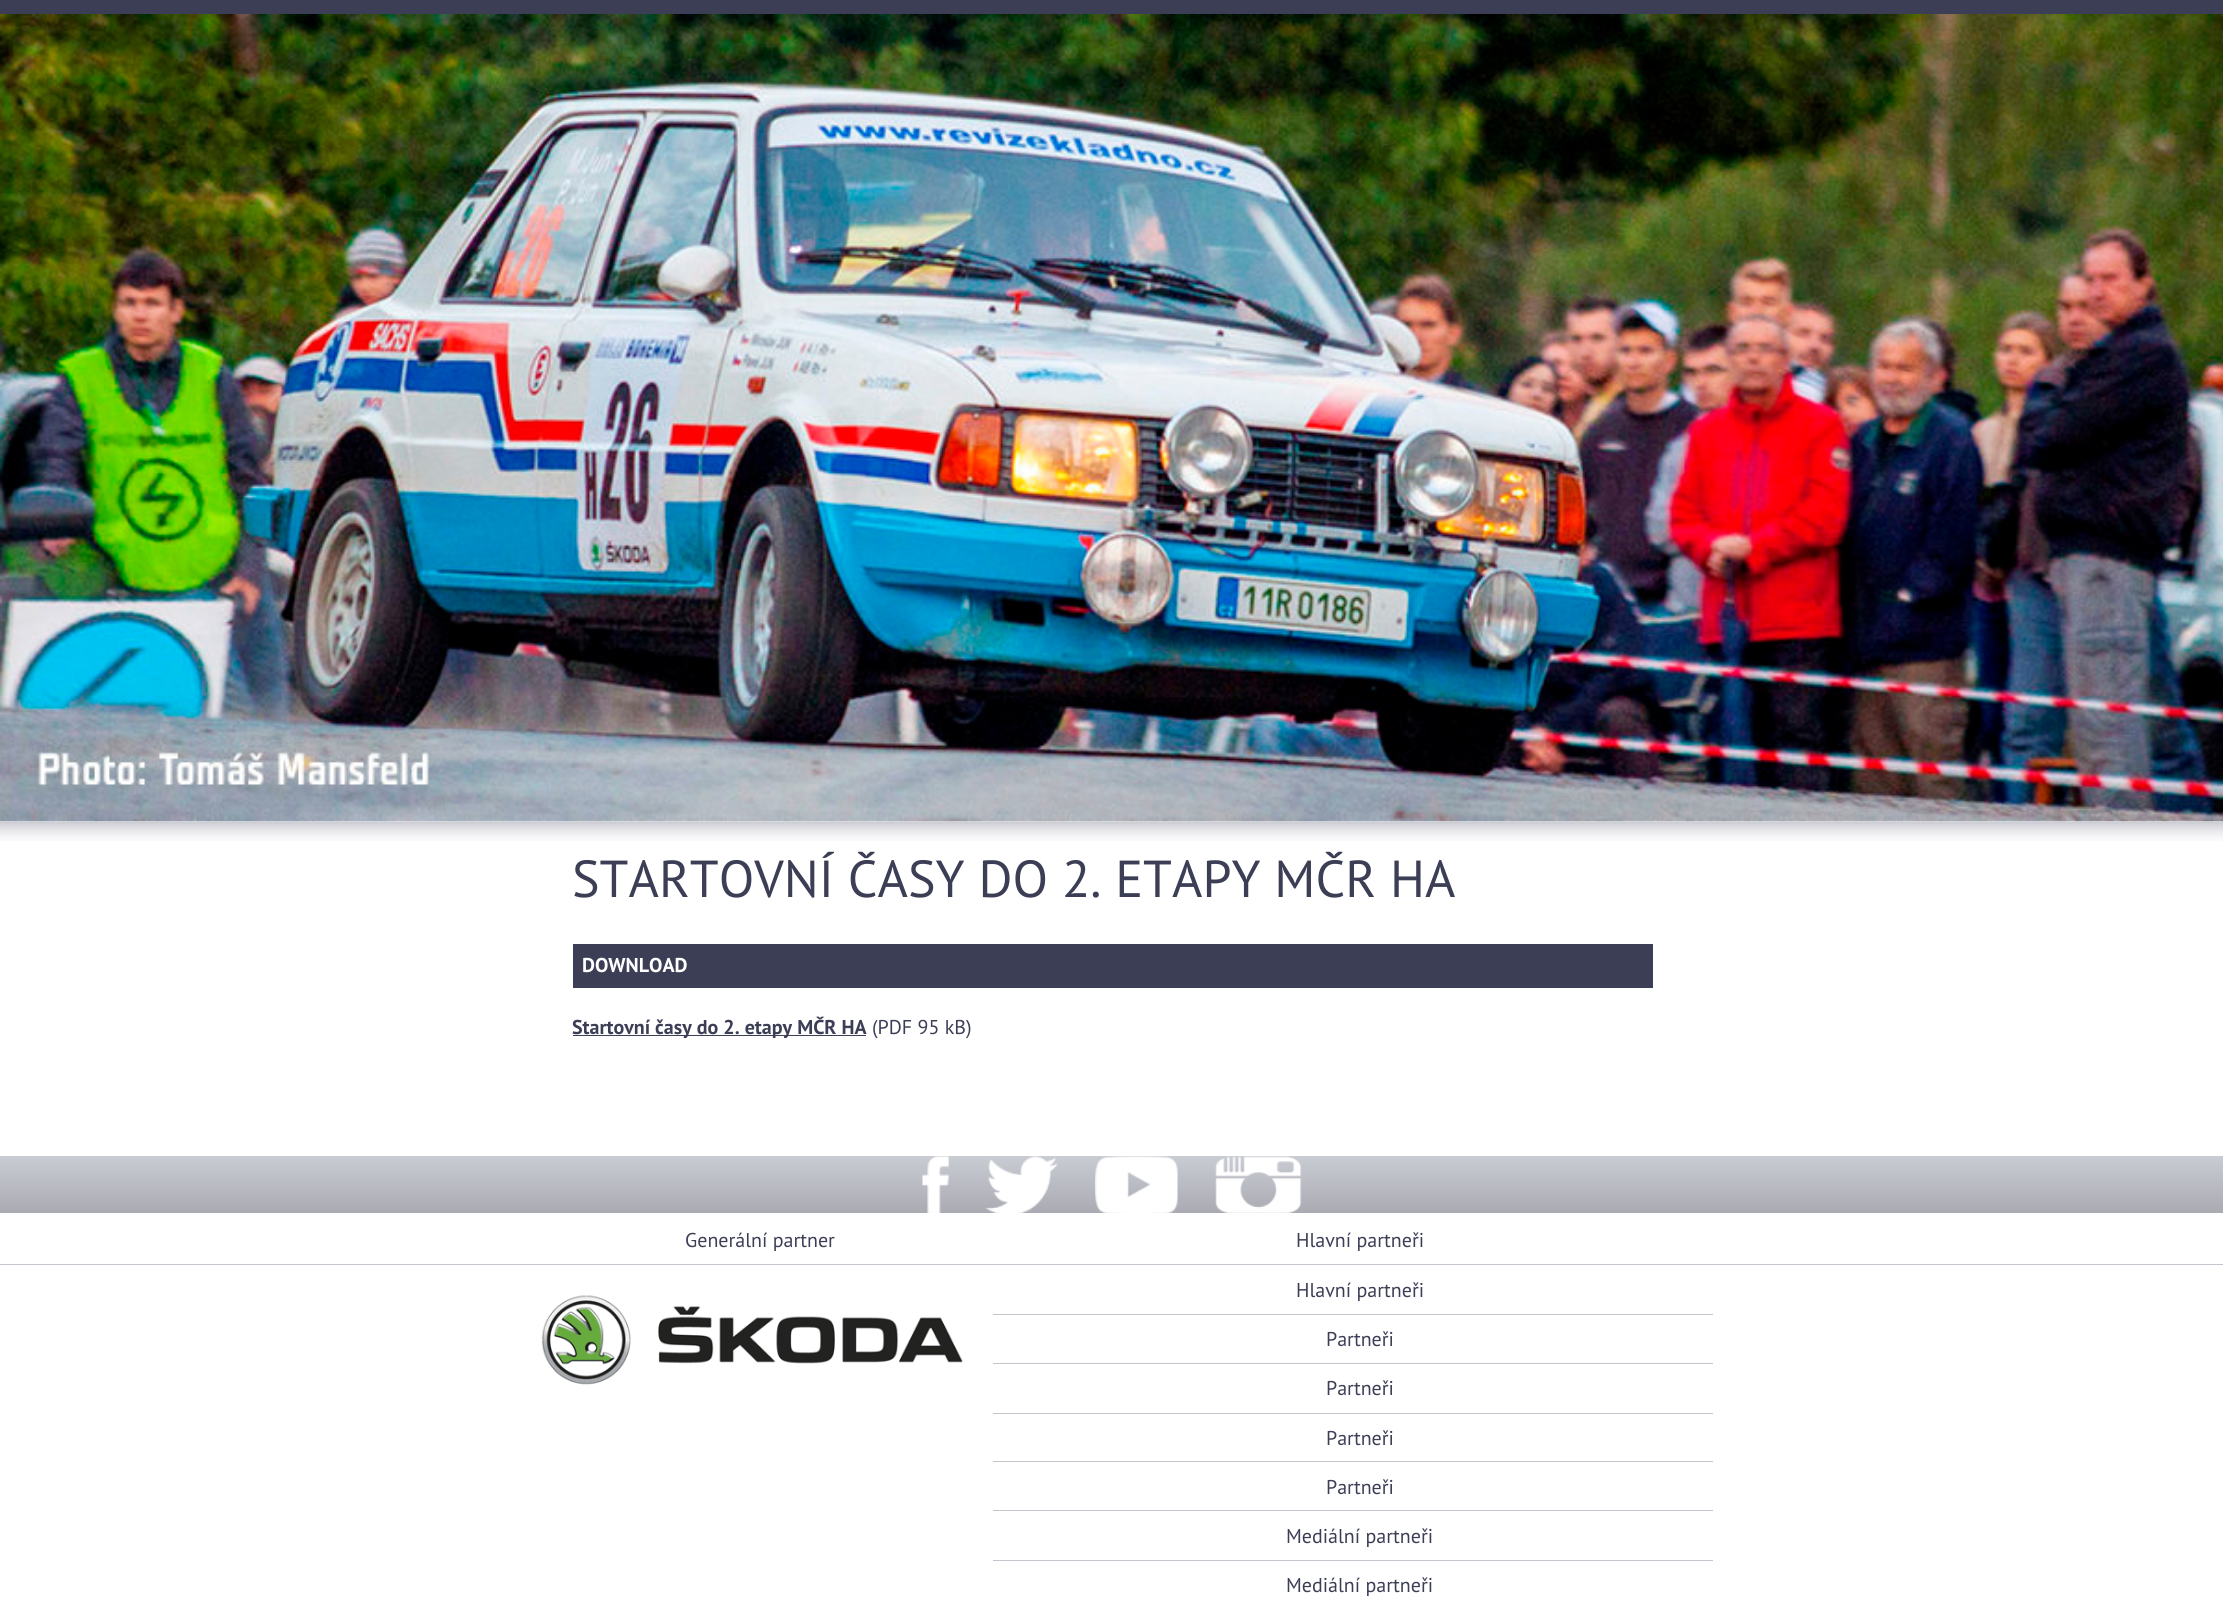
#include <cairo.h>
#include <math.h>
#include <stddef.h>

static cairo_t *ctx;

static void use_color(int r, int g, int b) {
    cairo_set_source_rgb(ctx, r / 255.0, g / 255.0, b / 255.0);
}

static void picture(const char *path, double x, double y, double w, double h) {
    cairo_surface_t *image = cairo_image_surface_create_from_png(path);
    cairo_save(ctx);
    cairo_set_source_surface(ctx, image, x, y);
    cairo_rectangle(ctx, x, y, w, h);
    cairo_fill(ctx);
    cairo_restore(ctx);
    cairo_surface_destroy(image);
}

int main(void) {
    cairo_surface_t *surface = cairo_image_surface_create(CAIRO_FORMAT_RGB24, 2223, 1598);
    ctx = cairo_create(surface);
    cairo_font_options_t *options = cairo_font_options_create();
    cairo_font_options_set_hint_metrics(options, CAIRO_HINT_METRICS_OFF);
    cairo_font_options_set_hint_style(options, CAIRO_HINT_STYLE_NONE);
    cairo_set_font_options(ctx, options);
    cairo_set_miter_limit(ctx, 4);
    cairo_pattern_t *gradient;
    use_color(255, 255, 255);
    cairo_paint(ctx);
    use_color(60, 62, 86);
    cairo_rectangle(ctx, 0, 0, 2223, 14);
    cairo_fill(ctx);
    picture("img2.png", 0, 821, 2223, 20);
    picture("img1.png", 0, 14, 2223, 808);
    cairo_select_font_face(ctx, "PT Sans", CAIRO_FONT_SLANT_NORMAL, CAIRO_FONT_WEIGHT_NORMAL);
    cairo_set_font_size(ctx, 52);
    cairo_move_to(ctx, 572, 897);
    cairo_show_text(ctx, "STARTOVNÍ ČASY DO 2. ETAPY MČR HA");
    cairo_rectangle(ctx, 573, 944, 1080, 44);
    cairo_fill(ctx);
    cairo_select_font_face(ctx, "PT Sans", CAIRO_FONT_SLANT_NORMAL, CAIRO_FONT_WEIGHT_BOLD);
    cairo_set_font_size(ctx, 20);
    use_color(255, 255, 255);
    cairo_move_to(ctx, 582, 972);
    cairo_show_text(ctx, "DOWNLOAD");
    use_color(60, 62, 86);
    cairo_rectangle(ctx, 573, 1035, 293, 1);
    cairo_fill(ctx);
    cairo_move_to(ctx, 572, 1034);
    cairo_show_text(ctx, "Startovní časy do 2. etapy MČR HA");
    cairo_select_font_face(ctx, "PT Sans", CAIRO_FONT_SLANT_NORMAL, CAIRO_FONT_WEIGHT_NORMAL);
    cairo_move_to(ctx, 872, 1034);
    cairo_show_text(ctx, "(PDF 95 kB)");
    gradient = cairo_pattern_create_linear(1112, 1156, 1112, 1213);
    cairo_pattern_add_color_stop_rgba(gradient, 0, 0.792, 0.8, 0.831, 1);
    cairo_pattern_add_color_stop_rgba(gradient, 1, 0.663, 0.667, 0.698, 1);
    cairo_set_source(ctx, gradient);
    cairo_pattern_destroy(gradient);
    cairo_rectangle(ctx, 0, 1156, 2223, 57);
    cairo_fill(ctx);
    picture("img3.png", 922, 1156, 27, 57);
    picture("img4.png", 986, 1156, 72, 57);
    picture("img5.png", 1095, 1156, 83, 57);
    picture("img6.png", 1215, 1156, 87, 57);
    use_color(60, 62, 86);
    cairo_move_to(ctx, 685, 1247);
    cairo_show_text(ctx, "Generální partner");
    picture("img7.png", 541, 1295, 422, 90);
    cairo_move_to(ctx, 1296, 1247);
    cairo_show_text(ctx, "Hlavní partneři");
    use_color(196, 197, 204);
    cairo_rectangle(ctx, 993, 1314, 720, 1);
    cairo_fill(ctx);
    use_color(60, 62, 86);
    cairo_move_to(ctx, 1296, 1297);
    cairo_show_text(ctx, "Hlavní partneři");
    use_color(196, 197, 204);
    cairo_rectangle(ctx, 993, 1363, 720, 1);
    cairo_fill(ctx);
    use_color(60, 62, 86);
    cairo_move_to(ctx, 1326, 1346);
    cairo_show_text(ctx, "Partneři");
    use_color(196, 197, 204);
    cairo_rectangle(ctx, 993, 1413, 720, 1);
    cairo_fill(ctx);
    use_color(60, 62, 86);
    cairo_move_to(ctx, 1326, 1395);
    cairo_show_text(ctx, "Partneři");
    use_color(196, 197, 204);
    cairo_rectangle(ctx, 993, 1461, 720, 1);
    cairo_fill(ctx);
    use_color(60, 62, 86);
    cairo_move_to(ctx, 1326, 1445);
    cairo_show_text(ctx, "Partneři");
    use_color(196, 197, 204);
    cairo_rectangle(ctx, 993, 1510, 720, 1);
    cairo_fill(ctx);
    use_color(60, 62, 86);
    cairo_move_to(ctx, 1326, 1494);
    cairo_show_text(ctx, "Partneři");
    use_color(196, 197, 204);
    cairo_rectangle(ctx, 993, 1560, 720, 1);
    cairo_fill(ctx);
    use_color(60, 62, 86);
    cairo_move_to(ctx, 1286, 1543);
    cairo_show_text(ctx, "Mediální partneři");
    cairo_move_to(ctx, 1286, 1592);
    cairo_show_text(ctx, "Mediální partneři");
    use_color(196, 197, 204);
    cairo_rectangle(ctx, 0, 1264, 2223, 1);
    cairo_fill(ctx);
    cairo_surface_write_to_png(surface, "result.png");
    cairo_font_options_destroy(options);
    cairo_destroy(ctx);
    cairo_surface_destroy(surface);
    return 0;
}
